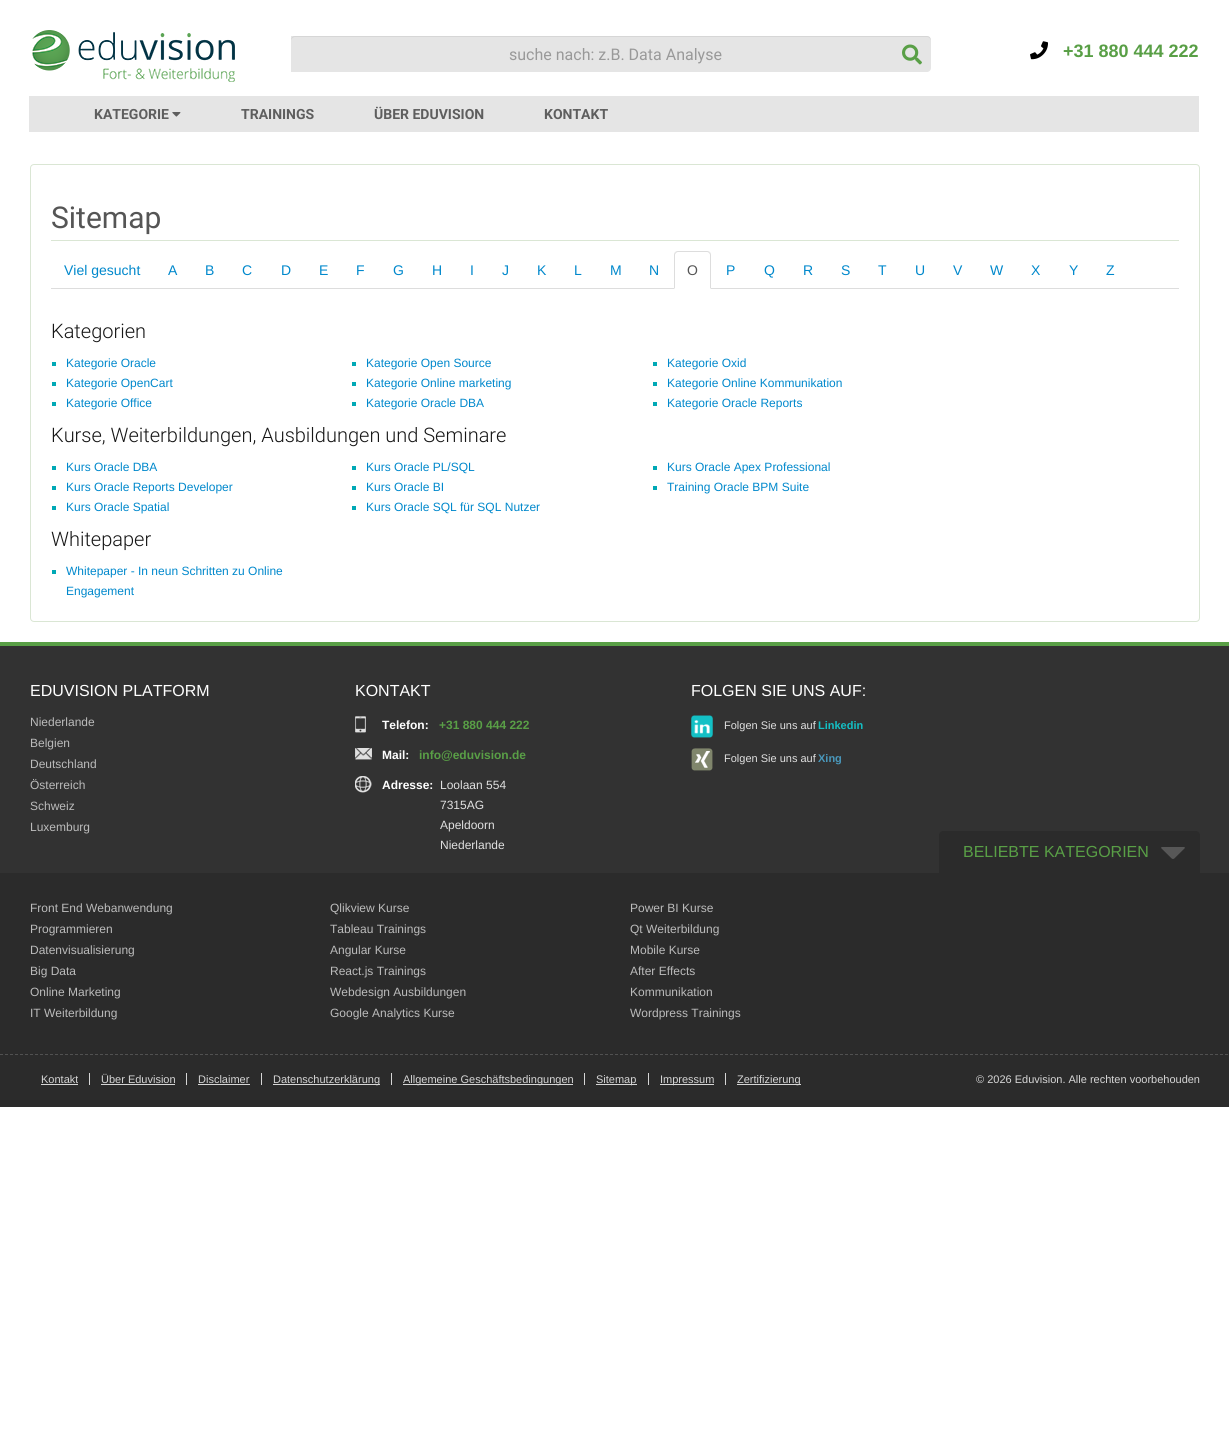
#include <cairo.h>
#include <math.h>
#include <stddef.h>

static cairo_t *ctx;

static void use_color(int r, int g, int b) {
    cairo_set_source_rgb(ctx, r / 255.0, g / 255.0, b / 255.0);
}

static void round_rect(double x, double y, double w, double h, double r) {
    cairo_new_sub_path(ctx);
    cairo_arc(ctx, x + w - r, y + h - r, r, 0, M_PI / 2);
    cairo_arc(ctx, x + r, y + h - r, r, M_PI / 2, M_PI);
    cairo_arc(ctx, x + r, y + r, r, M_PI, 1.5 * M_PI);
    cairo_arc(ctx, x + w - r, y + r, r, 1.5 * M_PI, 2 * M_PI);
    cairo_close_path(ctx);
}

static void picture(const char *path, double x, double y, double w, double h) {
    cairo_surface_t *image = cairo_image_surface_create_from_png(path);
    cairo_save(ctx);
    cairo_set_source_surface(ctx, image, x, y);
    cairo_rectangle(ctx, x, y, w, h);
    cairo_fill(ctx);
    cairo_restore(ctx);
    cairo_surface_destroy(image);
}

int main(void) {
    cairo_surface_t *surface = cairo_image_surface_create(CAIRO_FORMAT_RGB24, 1229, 1431);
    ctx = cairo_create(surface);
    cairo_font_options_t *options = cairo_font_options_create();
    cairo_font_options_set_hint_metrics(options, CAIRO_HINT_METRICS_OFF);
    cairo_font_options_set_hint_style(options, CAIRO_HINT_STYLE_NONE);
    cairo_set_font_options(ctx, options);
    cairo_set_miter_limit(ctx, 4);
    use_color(255, 255, 255);
    cairo_paint(ctx);
    picture("img1.png", 32, 30, 203, 52);
    use_color(229, 229, 229);
    cairo_rectangle(ctx, 291, 36, 4, 36);
    cairo_fill(ctx);
    round_rect(291, 36, 640, 36, 4);
    cairo_fill(ctx);
    cairo_set_source_rgba(ctx, 0, 0, 0, 0.07);
    cairo_new_path(ctx);
    cairo_move_to(ctx, 295, 37);
    cairo_line_to(ctx, 927, 37);
    cairo_curve_to(ctx, 929, 37, 931, 39, 931, 41);
    cairo_curve_to(ctx, 931, 38, 930, 36, 927, 36);
    cairo_line_to(ctx, 295, 36);
    cairo_curve_to(ctx, 292, 36, 291, 38, 291, 41);
    cairo_curve_to(ctx, 291, 39, 293, 37, 295, 37);
    cairo_close_path(ctx);
    cairo_fill(ctx);
    cairo_select_font_face(ctx, "Roboto", CAIRO_FONT_SLANT_NORMAL, CAIRO_FONT_WEIGHT_NORMAL);
    cairo_set_font_size(ctx, 16);
    use_color(153, 153, 153);
    cairo_move_to(ctx, 509, 60);
    cairo_show_text(ctx, "suche nach: z.B. Data Analyse");
    picture("img2.png", 902, 44, 20, 21);
    picture("img3.png", 1030, 41, 18, 19);
    cairo_select_font_face(ctx, "Liberation Sans", CAIRO_FONT_SLANT_NORMAL, CAIRO_FONT_WEIGHT_BOLD);
    cairo_set_font_size(ctx, 18);
    use_color(89, 159, 70);
    cairo_move_to(ctx, 1063, 57);
    cairo_show_text(ctx, "+31 880 444 222");
    use_color(229, 229, 229);
    cairo_rectangle(ctx, 29, 96, 1170, 36);
    cairo_fill(ctx);
    cairo_select_font_face(ctx, "Roboto", CAIRO_FONT_SLANT_NORMAL, CAIRO_FONT_WEIGHT_BOLD);
    cairo_set_font_size(ctx, 14);
    use_color(94, 94, 94);
    cairo_move_to(ctx, 94, 119);
    cairo_show_text(ctx, "KATEGORIE");
    picture("img4.png", 172, 112, 9, 5);
    cairo_move_to(ctx, 241, 119);
    cairo_show_text(ctx, "TRAININGS");
    cairo_move_to(ctx, 374, 119);
    cairo_show_text(ctx, "ÜBER EDUVISION");
    cairo_move_to(ctx, 544, 119);
    cairo_show_text(ctx, "KONTAKT");
    round_rect(30.5, 164.5, 1169, 457, 3.5);
    use_color(218, 230, 212);
    cairo_set_line_width(ctx, 1);
    cairo_stroke(ctx);
    cairo_rectangle(ctx, 51, 240, 1128, 1);
    cairo_fill(ctx);
    cairo_select_font_face(ctx, "Roboto", CAIRO_FONT_SLANT_NORMAL, CAIRO_FONT_WEIGHT_NORMAL);
    cairo_set_font_size(ctx, 30);
    use_color(85, 85, 85);
    cairo_move_to(ctx, 51, 228);
    cairo_show_text(ctx, "Sitemap");
    use_color(221, 221, 221);
    cairo_rectangle(ctx, 51, 288, 1128, 1);
    cairo_fill(ctx);
    cairo_select_font_face(ctx, "Liberation Sans", CAIRO_FONT_SLANT_NORMAL, CAIRO_FONT_WEIGHT_NORMAL);
    cairo_set_font_size(ctx, 14);
    use_color(0, 136, 204);
    cairo_move_to(ctx, 64, 275);
    cairo_show_text(ctx, "Viel gesucht");
    cairo_move_to(ctx, 168, 275);
    cairo_show_text(ctx, "A");
    cairo_move_to(ctx, 205, 275);
    cairo_show_text(ctx, "B");
    cairo_move_to(ctx, 242, 275);
    cairo_show_text(ctx, "C");
    cairo_move_to(ctx, 281, 275);
    cairo_show_text(ctx, "D");
    cairo_move_to(ctx, 319, 275);
    cairo_show_text(ctx, "E");
    cairo_move_to(ctx, 356, 275);
    cairo_show_text(ctx, "F");
    cairo_move_to(ctx, 393, 275);
    cairo_show_text(ctx, "G");
    cairo_move_to(ctx, 432, 275);
    cairo_show_text(ctx, "H");
    cairo_move_to(ctx, 470, 275);
    cairo_show_text(ctx, "I");
    cairo_move_to(ctx, 502, 275);
    cairo_show_text(ctx, "J");
    cairo_move_to(ctx, 537, 275);
    cairo_show_text(ctx, "K");
    cairo_move_to(ctx, 574, 275);
    cairo_show_text(ctx, "L");
    cairo_move_to(ctx, 610, 275);
    cairo_show_text(ctx, "M");
    cairo_move_to(ctx, 649, 275);
    cairo_show_text(ctx, "N");
    use_color(255, 255, 255);
    cairo_new_path(ctx);
    cairo_move_to(ctx, 678, 251);
    cairo_line_to(ctx, 707, 251);
    cairo_curve_to(ctx, 709, 251, 711, 253, 711, 255);
    cairo_line_to(ctx, 711, 289);
    cairo_line_to(ctx, 674, 289);
    cairo_line_to(ctx, 674, 255);
    cairo_curve_to(ctx, 674, 253, 676, 251, 678, 251);
    cairo_close_path(ctx);
    cairo_fill(ctx);
    use_color(221, 221, 221);
    cairo_new_path(ctx);
    cairo_move_to(ctx, 678, 251);
    cairo_curve_to(ctx, 677, 251, 676, 251.5, 675, 252);
    cairo_line_to(ctx, 676, 253);
    cairo_curve_to(ctx, 676.5, 252.5, 677, 252, 678, 252);
    cairo_line_to(ctx, 707, 252);
    cairo_curve_to(ctx, 708, 252, 708.5, 252.5, 709, 253);
    cairo_line_to(ctx, 710, 252);
    cairo_curve_to(ctx, 709, 251.5, 708, 251, 707, 251);
    cairo_close_path(ctx);
    cairo_fill(ctx);
    cairo_new_path(ctx);
    cairo_move_to(ctx, 711, 289);
    cairo_line_to(ctx, 711, 255);
    cairo_curve_to(ctx, 711, 254, 710.5, 253, 710, 252);
    cairo_line_to(ctx, 709, 253);
    cairo_curve_to(ctx, 709.5, 253.5, 710, 254, 710, 255);
    cairo_line_to(ctx, 710, 288);
    cairo_close_path(ctx);
    cairo_move_to(ctx, 674, 289);
    cairo_line_to(ctx, 675, 288);
    cairo_line_to(ctx, 675, 255);
    cairo_curve_to(ctx, 675, 254, 675.5, 253.5, 676, 253);
    cairo_line_to(ctx, 675, 252);
    cairo_curve_to(ctx, 674.5, 253, 674, 254, 674, 255);
    cairo_close_path(ctx);
    cairo_fill(ctx);
    use_color(85, 85, 85);
    cairo_move_to(ctx, 687, 275);
    cairo_show_text(ctx, "O");
    use_color(0, 136, 204);
    cairo_move_to(ctx, 726, 275);
    cairo_show_text(ctx, "P");
    cairo_move_to(ctx, 764, 275);
    cairo_show_text(ctx, "Q");
    cairo_move_to(ctx, 803, 275);
    cairo_show_text(ctx, "R");
    cairo_move_to(ctx, 841, 275);
    cairo_show_text(ctx, "S");
    cairo_move_to(ctx, 878, 275);
    cairo_show_text(ctx, "T");
    cairo_move_to(ctx, 915, 275);
    cairo_show_text(ctx, "U");
    cairo_move_to(ctx, 953, 275);
    cairo_show_text(ctx, "V");
    cairo_move_to(ctx, 990, 275);
    cairo_show_text(ctx, "W");
    cairo_move_to(ctx, 1031, 275);
    cairo_show_text(ctx, "X");
    cairo_move_to(ctx, 1069, 275);
    cairo_show_text(ctx, "Y");
    cairo_move_to(ctx, 1106, 275);
    cairo_show_text(ctx, "Z");
    cairo_select_font_face(ctx, "Roboto Light", CAIRO_FONT_SLANT_NORMAL, CAIRO_FONT_WEIGHT_NORMAL);
    cairo_set_font_size(ctx, 20);
    use_color(22, 22, 22);
    cairo_move_to(ctx, 51, 338);
    cairo_show_text(ctx, "Kategorien");
    use_color(0, 168, 181);
    cairo_rectangle(ctx, 52, 362, 4, 4);
    cairo_fill(ctx);
    cairo_select_font_face(ctx, "Liberation Sans", CAIRO_FONT_SLANT_NORMAL, CAIRO_FONT_WEIGHT_NORMAL);
    cairo_set_font_size(ctx, 12);
    use_color(0, 136, 204);
    cairo_move_to(ctx, 66, 367);
    cairo_show_text(ctx, "Kategorie Oracle");
    use_color(0, 168, 181);
    cairo_rectangle(ctx, 352, 362, 4, 4);
    cairo_fill(ctx);
    use_color(0, 136, 204);
    cairo_move_to(ctx, 366, 367);
    cairo_show_text(ctx, "Kategorie Open Source");
    use_color(0, 168, 181);
    cairo_rectangle(ctx, 653, 362, 4, 4);
    cairo_fill(ctx);
    use_color(0, 136, 204);
    cairo_move_to(ctx, 667, 367);
    cairo_show_text(ctx, "Kategorie Oxid");
    use_color(0, 168, 181);
    cairo_rectangle(ctx, 52, 382, 4, 4);
    cairo_fill(ctx);
    use_color(0, 136, 204);
    cairo_move_to(ctx, 66, 387);
    cairo_show_text(ctx, "Kategorie OpenCart");
    use_color(0, 168, 181);
    cairo_rectangle(ctx, 352, 382, 4, 4);
    cairo_fill(ctx);
    use_color(0, 136, 204);
    cairo_move_to(ctx, 366, 387);
    cairo_show_text(ctx, "Kategorie Online marketing");
    use_color(0, 168, 181);
    cairo_rectangle(ctx, 653, 382, 4, 4);
    cairo_fill(ctx);
    use_color(0, 136, 204);
    cairo_move_to(ctx, 667, 387);
    cairo_show_text(ctx, "Kategorie Online Kommunikation");
    use_color(0, 168, 181);
    cairo_rectangle(ctx, 52, 402, 4, 4);
    cairo_fill(ctx);
    use_color(0, 136, 204);
    cairo_move_to(ctx, 66, 407);
    cairo_show_text(ctx, "Kategorie Office");
    use_color(0, 168, 181);
    cairo_rectangle(ctx, 352, 402, 4, 4);
    cairo_fill(ctx);
    use_color(0, 136, 204);
    cairo_move_to(ctx, 366, 407);
    cairo_show_text(ctx, "Kategorie Oracle DBA");
    use_color(0, 168, 181);
    cairo_rectangle(ctx, 653, 402, 4, 4);
    cairo_fill(ctx);
    use_color(0, 136, 204);
    cairo_move_to(ctx, 667, 407);
    cairo_show_text(ctx, "Kategorie Oracle Reports");
    cairo_select_font_face(ctx, "Roboto Light", CAIRO_FONT_SLANT_NORMAL, CAIRO_FONT_WEIGHT_NORMAL);
    cairo_set_font_size(ctx, 20);
    use_color(22, 22, 22);
    cairo_move_to(ctx, 51, 442);
    cairo_show_text(ctx, "Kurse, Weiterbildungen, Ausbildungen und Seminare");
    use_color(0, 168, 181);
    cairo_rectangle(ctx, 52, 466, 4, 4);
    cairo_fill(ctx);
    cairo_select_font_face(ctx, "Liberation Sans", CAIRO_FONT_SLANT_NORMAL, CAIRO_FONT_WEIGHT_NORMAL);
    cairo_set_font_size(ctx, 12);
    use_color(0, 136, 204);
    cairo_move_to(ctx, 66, 471);
    cairo_show_text(ctx, "Kurs Oracle DBA");
    use_color(0, 168, 181);
    cairo_rectangle(ctx, 352, 466, 4, 4);
    cairo_fill(ctx);
    use_color(0, 136, 204);
    cairo_move_to(ctx, 366, 471);
    cairo_show_text(ctx, "Kurs Oracle PL/SQL");
    use_color(0, 168, 181);
    cairo_rectangle(ctx, 653, 466, 4, 4);
    cairo_fill(ctx);
    use_color(0, 136, 204);
    cairo_move_to(ctx, 667, 471);
    cairo_show_text(ctx, "Kurs Oracle Apex Professional");
    use_color(0, 168, 181);
    cairo_rectangle(ctx, 52, 486, 4, 4);
    cairo_fill(ctx);
    use_color(0, 136, 204);
    cairo_move_to(ctx, 66, 491);
    cairo_show_text(ctx, "Kurs Oracle Reports Developer");
    use_color(0, 168, 181);
    cairo_rectangle(ctx, 352, 486, 4, 4);
    cairo_fill(ctx);
    use_color(0, 136, 204);
    cairo_move_to(ctx, 366, 491);
    cairo_show_text(ctx, "Kurs Oracle BI");
    use_color(0, 168, 181);
    cairo_rectangle(ctx, 653, 486, 4, 4);
    cairo_fill(ctx);
    use_color(0, 136, 204);
    cairo_move_to(ctx, 667, 491);
    cairo_show_text(ctx, "Training Oracle BPM Suite");
    use_color(0, 168, 181);
    cairo_rectangle(ctx, 52, 506, 4, 4);
    cairo_fill(ctx);
    use_color(0, 136, 204);
    cairo_move_to(ctx, 66, 511);
    cairo_show_text(ctx, "Kurs Oracle Spatial");
    use_color(0, 168, 181);
    cairo_rectangle(ctx, 352, 506, 4, 4);
    cairo_fill(ctx);
    use_color(0, 136, 204);
    cairo_move_to(ctx, 366, 511);
    cairo_show_text(ctx, "Kurs Oracle SQL für SQL Nutzer");
    cairo_select_font_face(ctx, "Roboto Light", CAIRO_FONT_SLANT_NORMAL, CAIRO_FONT_WEIGHT_NORMAL);
    cairo_set_font_size(ctx, 20);
    use_color(22, 22, 22);
    cairo_move_to(ctx, 51, 546);
    cairo_show_text(ctx, "Whitepaper");
    use_color(0, 168, 181);
    cairo_rectangle(ctx, 52, 570, 4, 4);
    cairo_fill(ctx);
    cairo_select_font_face(ctx, "Liberation Sans", CAIRO_FONT_SLANT_NORMAL, CAIRO_FONT_WEIGHT_NORMAL);
    cairo_set_font_size(ctx, 12);
    use_color(0, 136, 204);
    cairo_move_to(ctx, 66, 575);
    cairo_show_text(ctx, "Whitepaper - In neun Schritten zu Online");
    cairo_move_to(ctx, 66, 595);
    cairo_show_text(ctx, "Engagement");
    use_color(50, 50, 50);
    cairo_rectangle(ctx, 0, 646, 1229, 227);
    cairo_fill(ctx);
    use_color(89, 159, 70);
    cairo_rectangle(ctx, 0, 642, 1229, 4);
    cairo_fill(ctx);
    use_color(43, 43, 43);
    cairo_rectangle(ctx, 0, 873, 1229, 234);
    cairo_fill(ctx);
    cairo_set_font_size(ctx, 16);
    use_color(255, 255, 255);
    cairo_move_to(ctx, 30, 696);
    cairo_show_text(ctx, "EDUVISION PLATFORM");
    cairo_set_font_size(ctx, 12);
    use_color(187, 187, 187);
    cairo_move_to(ctx, 30, 726);
    cairo_show_text(ctx, "Niederlande");
    cairo_move_to(ctx, 30, 747);
    cairo_show_text(ctx, "Belgien");
    cairo_move_to(ctx, 30, 768);
    cairo_show_text(ctx, "Deutschland");
    cairo_move_to(ctx, 30, 789);
    cairo_show_text(ctx, "Österreich");
    cairo_move_to(ctx, 30, 810);
    cairo_show_text(ctx, "Schweiz");
    cairo_move_to(ctx, 30, 831);
    cairo_show_text(ctx, "Luxemburg");
    cairo_set_font_size(ctx, 16);
    use_color(255, 255, 255);
    cairo_move_to(ctx, 355, 696);
    cairo_show_text(ctx, "KONTAKT");
    picture("img5.png", 355, 716, 11, 17);
    cairo_select_font_face(ctx, "Liberation Sans", CAIRO_FONT_SLANT_NORMAL, CAIRO_FONT_WEIGHT_BOLD);
    cairo_set_font_size(ctx, 12);
    cairo_move_to(ctx, 382, 729);
    cairo_show_text(ctx, "Telefon:");
    use_color(89, 159, 70);
    cairo_move_to(ctx, 439, 729);
    cairo_show_text(ctx, "+31 880 444 222");
    picture("img6.png", 355, 748, 17, 12);
    use_color(255, 255, 255);
    cairo_move_to(ctx, 382, 759);
    cairo_show_text(ctx, "Mail:");
    use_color(89, 159, 70);
    cairo_move_to(ctx, 419, 759);
    cairo_show_text(ctx, "info@eduvision.de");
    picture("img7.png", 355, 776, 17, 17);
    use_color(255, 255, 255);
    cairo_move_to(ctx, 382, 789);
    cairo_show_text(ctx, "Adresse:");
    cairo_select_font_face(ctx, "Liberation Sans", CAIRO_FONT_SLANT_NORMAL, CAIRO_FONT_WEIGHT_NORMAL);
    use_color(224, 224, 224);
    cairo_move_to(ctx, 440, 789);
    cairo_show_text(ctx, "Loolaan 554");
    cairo_move_to(ctx, 440, 809);
    cairo_show_text(ctx, "7315AG");
    cairo_move_to(ctx, 440, 829);
    cairo_show_text(ctx, "Apeldoorn");
    cairo_move_to(ctx, 440, 849);
    cairo_show_text(ctx, "Niederlande");
    cairo_set_font_size(ctx, 16);
    use_color(255, 255, 255);
    cairo_move_to(ctx, 691, 696);
    cairo_show_text(ctx, "FOLGEN SIE UNS AUF:");
    picture("img8.png", 691, 715, 22, 23);
    cairo_set_font_size(ctx, 11);
    use_color(224, 224, 224);
    cairo_move_to(ctx, 724, 729);
    cairo_show_text(ctx, "Folgen Sie uns auf");
    cairo_select_font_face(ctx, "Liberation Sans", CAIRO_FONT_SLANT_NORMAL, CAIRO_FONT_WEIGHT_BOLD);
    use_color(19, 192, 197);
    cairo_move_to(ctx, 818, 729);
    cairo_show_text(ctx, "Linkedin");
    picture("img9.png", 691, 748, 22, 23);
    cairo_select_font_face(ctx, "Liberation Sans", CAIRO_FONT_SLANT_NORMAL, CAIRO_FONT_WEIGHT_NORMAL);
    use_color(224, 224, 224);
    cairo_move_to(ctx, 724, 762);
    cairo_show_text(ctx, "Folgen Sie uns auf");
    cairo_select_font_face(ctx, "Liberation Sans", CAIRO_FONT_SLANT_NORMAL, CAIRO_FONT_WEIGHT_BOLD);
    use_color(73, 152, 188);
    cairo_move_to(ctx, 818, 762);
    cairo_show_text(ctx, "Xing");
    use_color(43, 43, 43);
    cairo_new_path(ctx);
    cairo_move_to(ctx, 943, 831);
    cairo_line_to(ctx, 1196, 831);
    cairo_curve_to(ctx, 1198, 831, 1200, 833, 1200, 835);
    cairo_line_to(ctx, 1200, 873);
    cairo_line_to(ctx, 939, 873);
    cairo_line_to(ctx, 939, 835);
    cairo_curve_to(ctx, 939, 833, 941, 831, 943, 831);
    cairo_close_path(ctx);
    cairo_fill(ctx);
    cairo_select_font_face(ctx, "Liberation Sans", CAIRO_FONT_SLANT_NORMAL, CAIRO_FONT_WEIGHT_NORMAL);
    cairo_set_font_size(ctx, 16);
    use_color(89, 159, 70);
    cairo_move_to(ctx, 963, 857);
    cairo_show_text(ctx, "BELIEBTE KATEGORIEN");
    picture("img10.png", 1161, 847, 24, 12);
    cairo_set_font_size(ctx, 12);
    use_color(187, 187, 187);
    cairo_move_to(ctx, 30, 912);
    cairo_show_text(ctx, "Front End Webanwendung");
    cairo_move_to(ctx, 30, 933);
    cairo_show_text(ctx, "Programmieren");
    cairo_move_to(ctx, 30, 954);
    cairo_show_text(ctx, "Datenvisualisierung");
    cairo_move_to(ctx, 30, 975);
    cairo_show_text(ctx, "Big Data");
    cairo_move_to(ctx, 30, 996);
    cairo_show_text(ctx, "Online Marketing");
    cairo_move_to(ctx, 30, 1017);
    cairo_show_text(ctx, "IT Weiterbildung");
    cairo_move_to(ctx, 330, 912);
    cairo_show_text(ctx, "Qlikview Kurse");
    cairo_move_to(ctx, 330, 933);
    cairo_show_text(ctx, "Tableau Trainings");
    cairo_move_to(ctx, 330, 954);
    cairo_show_text(ctx, "Angular Kurse");
    cairo_move_to(ctx, 330, 975);
    cairo_show_text(ctx, "React.js Trainings");
    cairo_move_to(ctx, 330, 996);
    cairo_show_text(ctx, "Webdesign Ausbildungen");
    cairo_move_to(ctx, 330, 1017);
    cairo_show_text(ctx, "Google Analytics Kurse");
    cairo_move_to(ctx, 630, 912);
    cairo_show_text(ctx, "Power BI Kurse");
    cairo_move_to(ctx, 630, 933);
    cairo_show_text(ctx, "Qt Weiterbildung");
    cairo_move_to(ctx, 630, 954);
    cairo_show_text(ctx, "Mobile Kurse");
    cairo_move_to(ctx, 630, 975);
    cairo_show_text(ctx, "After Effects");
    cairo_move_to(ctx, 630, 996);
    cairo_show_text(ctx, "Kommunikation");
    cairo_move_to(ctx, 630, 1017);
    cairo_show_text(ctx, "Wordpress Trainings");
    cairo_new_path(ctx);
    cairo_move_to(ctx, 0, 1054.5);
    cairo_line_to(ctx, 1229, 1054.5);
    use_color(81, 81, 81);
    cairo_set_dash(ctx, (double[]){3, 2}, 2, 0);
    cairo_stroke(ctx);
    use_color(214, 214, 214);
    cairo_rectangle(ctx, 89, 1073, 1, 12);
    cairo_fill(ctx);
    cairo_set_font_size(ctx, 11);
    cairo_move_to(ctx, 41, 1083);
    cairo_show_text(ctx, "Kontakt");
    cairo_rectangle(ctx, 41, 1084, 37, 1);
    cairo_fill(ctx);
    cairo_rectangle(ctx, 186, 1073, 1, 12);
    cairo_fill(ctx);
    cairo_move_to(ctx, 101, 1083);
    cairo_show_text(ctx, "Über Eduvision");
    cairo_rectangle(ctx, 101, 1084, 74, 1);
    cairo_fill(ctx);
    cairo_rectangle(ctx, 261, 1073, 1, 12);
    cairo_fill(ctx);
    cairo_move_to(ctx, 198, 1083);
    cairo_show_text(ctx, "Disclaimer");
    cairo_rectangle(ctx, 198, 1084, 52, 1);
    cairo_fill(ctx);
    cairo_rectangle(ctx, 391, 1073, 1, 12);
    cairo_fill(ctx);
    cairo_rectangle(ctx, 273, 1084, 107, 1);
    cairo_fill(ctx);
    cairo_move_to(ctx, 273, 1083);
    cairo_show_text(ctx, "Datenschutzerklärung");
    cairo_rectangle(ctx, 584, 1073, 1, 12);
    cairo_fill(ctx);
    cairo_rectangle(ctx, 403, 1084, 170, 1);
    cairo_fill(ctx);
    cairo_move_to(ctx, 403, 1083);
    cairo_show_text(ctx, "Allgemeine Geschäftsbedingungen");
    cairo_rectangle(ctx, 648, 1073, 1, 12);
    cairo_fill(ctx);
    cairo_rectangle(ctx, 596, 1084, 41, 1);
    cairo_fill(ctx);
    cairo_move_to(ctx, 596, 1083);
    cairo_show_text(ctx, "Sitemap");
    cairo_rectangle(ctx, 725, 1073, 1, 12);
    cairo_fill(ctx);
    cairo_rectangle(ctx, 660, 1084, 54, 1);
    cairo_fill(ctx);
    cairo_move_to(ctx, 660, 1083);
    cairo_show_text(ctx, "Impressum");
    cairo_rectangle(ctx, 737, 1084, 64, 1);
    cairo_fill(ctx);
    cairo_move_to(ctx, 737, 1083);
    cairo_show_text(ctx, "Zertifizierung");
    cairo_move_to(ctx, 976, 1083);
    cairo_show_text(ctx, "© 2026 Eduvision. Alle rechten voorbehouden");
    cairo_surface_write_to_png(surface, "result.png");
    cairo_font_options_destroy(options);
    cairo_destroy(ctx);
    cairo_surface_destroy(surface);
    return 0;
}
